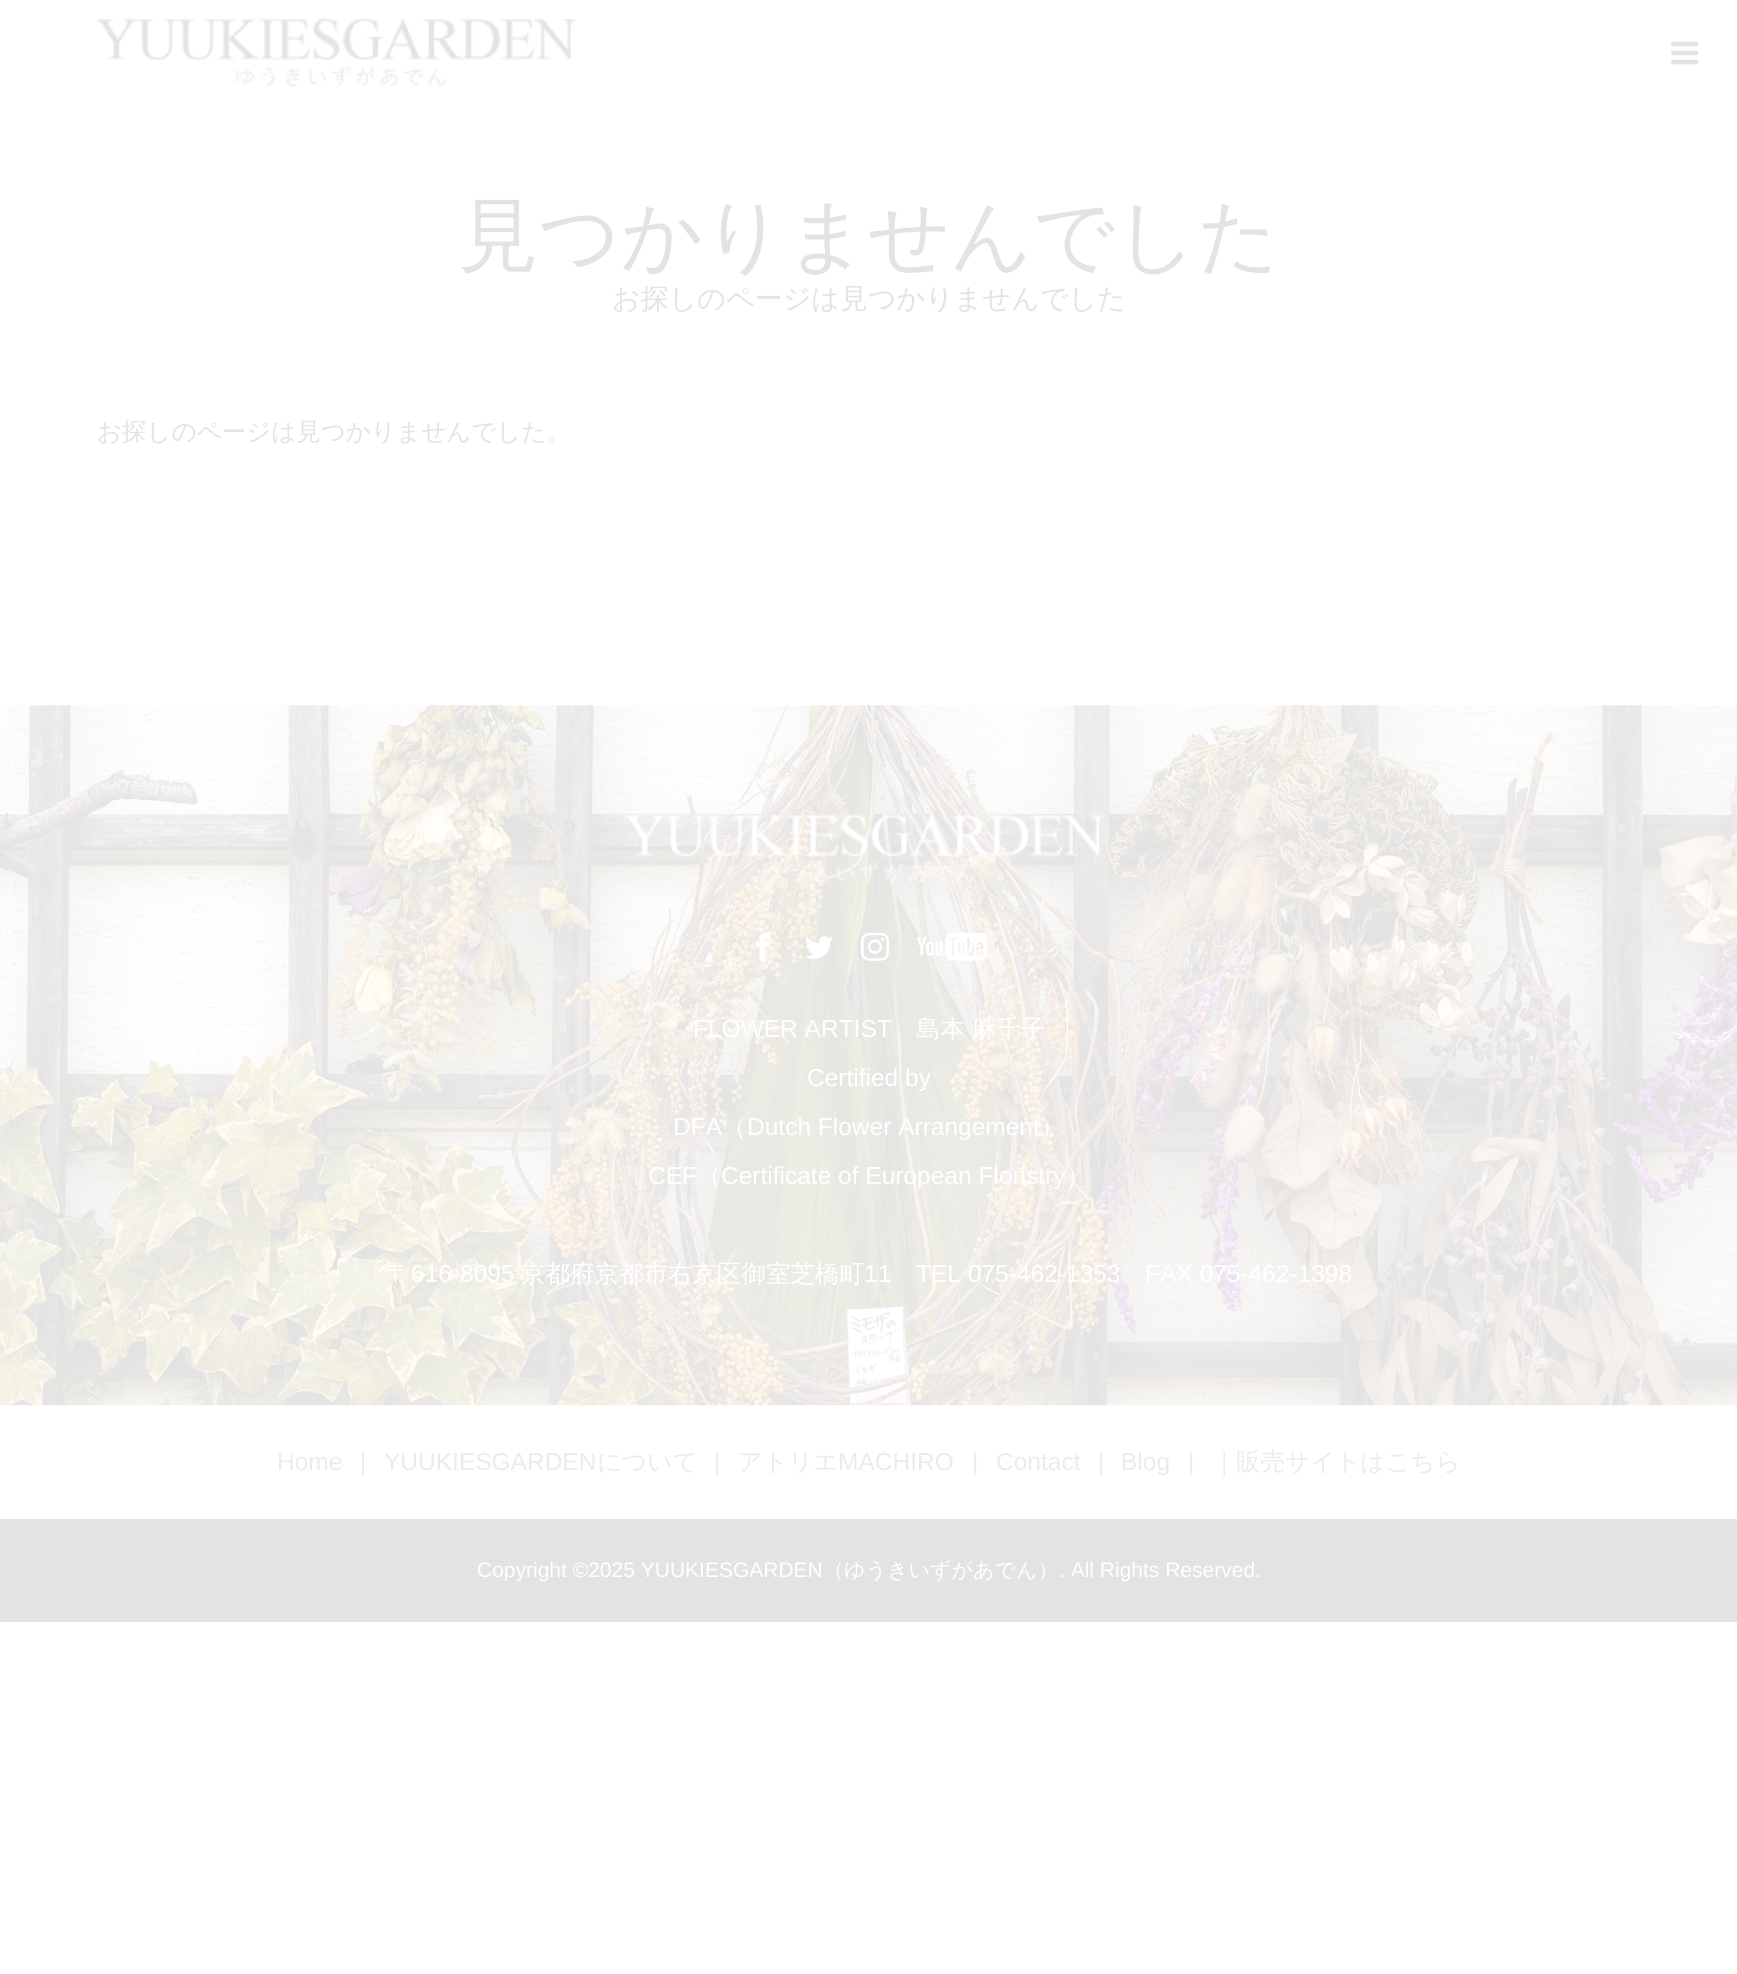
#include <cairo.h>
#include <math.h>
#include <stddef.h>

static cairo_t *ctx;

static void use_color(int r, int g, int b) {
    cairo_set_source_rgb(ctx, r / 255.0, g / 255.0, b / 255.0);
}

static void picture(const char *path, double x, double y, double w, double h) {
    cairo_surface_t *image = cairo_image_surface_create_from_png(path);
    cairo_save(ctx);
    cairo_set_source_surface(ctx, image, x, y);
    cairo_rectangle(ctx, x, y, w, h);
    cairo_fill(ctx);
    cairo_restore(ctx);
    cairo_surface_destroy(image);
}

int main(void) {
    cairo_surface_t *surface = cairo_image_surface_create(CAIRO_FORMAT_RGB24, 1737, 1974);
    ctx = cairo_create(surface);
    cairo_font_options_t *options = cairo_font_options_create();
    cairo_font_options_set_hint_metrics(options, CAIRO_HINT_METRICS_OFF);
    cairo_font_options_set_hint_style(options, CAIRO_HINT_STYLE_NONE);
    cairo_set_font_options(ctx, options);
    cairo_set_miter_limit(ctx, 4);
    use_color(255, 255, 255);
    cairo_paint(ctx);
    picture("img1.png", 96, 17, 482, 70);
    picture("img2.png", 1671, 41, 28, 24);
    cairo_select_font_face(ctx, "WenQuanYi Zen Hei Medium", CAIRO_FONT_SLANT_NORMAL, CAIRO_FONT_WEIGHT_NORMAL);
    cairo_set_font_size(ctx, 80.5);
    use_color(227, 227, 227);
    cairo_move_to(ctx, 458, 263);
    cairo_show_text(ctx, "見つかりませんでした");
    cairo_set_font_size(ctx, 28);
    cairo_move_to(ctx, 612, 308);
    cairo_show_text(ctx, "お探しのページは見つかりませんでした");
    cairo_set_font_size(ctx, 24.5);
    cairo_move_to(ctx, 97, 440);
    cairo_show_text(ctx, "お探しのページは見つかりませんでした。");
    picture("img3.png", 0, 705, 1737, 701);
    picture("img4.png", 624, 813, 483, 70);
    picture("img5.png", 756, 932, 14, 29);
    picture("img6.png", 805, 936, 28, 23);
    picture("img7.png", 861, 932, 28, 29);
    picture("img8.png", 917, 932, 71, 29);
    cairo_select_font_face(ctx, "Liberation Sans", CAIRO_FONT_SLANT_NORMAL, CAIRO_FONT_WEIGHT_NORMAL);
    use_color(255, 255, 255);
    cairo_move_to(ctx, 693, 1037);
    cairo_show_text(ctx, "FLOWER ARTIST");
    cairo_select_font_face(ctx, "WenQuanYi Zen Hei Medium", CAIRO_FONT_SLANT_NORMAL, CAIRO_FONT_WEIGHT_NORMAL);
    cairo_move_to(ctx, 916, 1037);
    cairo_show_text(ctx, "島本");
    cairo_move_to(ctx, 972, 1037);
    cairo_show_text(ctx, "麻千子");
    cairo_select_font_face(ctx, "Liberation Sans", CAIRO_FONT_SLANT_NORMAL, CAIRO_FONT_WEIGHT_NORMAL);
    cairo_move_to(ctx, 807, 1086);
    cairo_show_text(ctx, "Certified by");
    cairo_move_to(ctx, 673, 1135);
    cairo_show_text(ctx, "DFA");
    cairo_select_font_face(ctx, "WenQuanYi Zen Hei Medium", CAIRO_FONT_SLANT_NORMAL, CAIRO_FONT_WEIGHT_NORMAL);
    cairo_move_to(ctx, 722, 1135);
    cairo_show_text(ctx, "（");
    cairo_select_font_face(ctx, "Liberation Sans", CAIRO_FONT_SLANT_NORMAL, CAIRO_FONT_WEIGHT_NORMAL);
    cairo_move_to(ctx, 747, 1135);
    cairo_show_text(ctx, "Dutch Flower Arrangement");
    cairo_select_font_face(ctx, "WenQuanYi Zen Hei Medium", CAIRO_FONT_SLANT_NORMAL, CAIRO_FONT_WEIGHT_NORMAL);
    cairo_move_to(ctx, 1040, 1135);
    cairo_show_text(ctx, "）");
    cairo_select_font_face(ctx, "Liberation Sans", CAIRO_FONT_SLANT_NORMAL, CAIRO_FONT_WEIGHT_NORMAL);
    cairo_move_to(ctx, 648, 1184);
    cairo_show_text(ctx, "CEF");
    cairo_select_font_face(ctx, "WenQuanYi Zen Hei Medium", CAIRO_FONT_SLANT_NORMAL, CAIRO_FONT_WEIGHT_NORMAL);
    cairo_move_to(ctx, 697, 1184);
    cairo_show_text(ctx, "（");
    cairo_select_font_face(ctx, "Liberation Sans", CAIRO_FONT_SLANT_NORMAL, CAIRO_FONT_WEIGHT_NORMAL);
    cairo_move_to(ctx, 721, 1184);
    cairo_show_text(ctx, "Certificate of European Floristry");
    cairo_select_font_face(ctx, "WenQuanYi Zen Hei Medium", CAIRO_FONT_SLANT_NORMAL, CAIRO_FONT_WEIGHT_NORMAL);
    cairo_move_to(ctx, 1066, 1184);
    cairo_show_text(ctx, "）");
    cairo_move_to(ctx, 386, 1282);
    cairo_show_text(ctx, "〒");
    cairo_select_font_face(ctx, "Liberation Sans", CAIRO_FONT_SLANT_NORMAL, CAIRO_FONT_WEIGHT_NORMAL);
    cairo_move_to(ctx, 411, 1282);
    cairo_show_text(ctx, "616-8095");
    cairo_select_font_face(ctx, "WenQuanYi Zen Hei Medium", CAIRO_FONT_SLANT_NORMAL, CAIRO_FONT_WEIGHT_NORMAL);
    cairo_move_to(ctx, 521, 1282);
    cairo_show_text(ctx, "京都府京都市右京区御室芝橋町");
    cairo_select_font_face(ctx, "Liberation Sans", CAIRO_FONT_SLANT_NORMAL, CAIRO_FONT_WEIGHT_NORMAL);
    cairo_move_to(ctx, 864, 1282);
    cairo_show_text(ctx, "11");
    cairo_move_to(ctx, 916, 1282);
    cairo_show_text(ctx, "TEL 075-462-1353");
    cairo_move_to(ctx, 1145, 1282);
    cairo_show_text(ctx, "FAX 075-462-1398");
    use_color(233, 236, 238);
    cairo_move_to(ctx, 277, 1470);
    cairo_show_text(ctx, "Home");
    cairo_move_to(ctx, 360, 1470);
    cairo_show_text(ctx, "|");
    cairo_move_to(ctx, 384, 1470);
    cairo_show_text(ctx, "YUUKIESGARDEN");
    cairo_select_font_face(ctx, "WenQuanYi Zen Hei Medium", CAIRO_FONT_SLANT_NORMAL, CAIRO_FONT_WEIGHT_NORMAL);
    cairo_move_to(ctx, 597, 1470);
    cairo_show_text(ctx, "について");
    cairo_select_font_face(ctx, "Liberation Sans", CAIRO_FONT_SLANT_NORMAL, CAIRO_FONT_WEIGHT_NORMAL);
    cairo_move_to(ctx, 714, 1470);
    cairo_show_text(ctx, "|");
    cairo_select_font_face(ctx, "WenQuanYi Zen Hei Medium", CAIRO_FONT_SLANT_NORMAL, CAIRO_FONT_WEIGHT_NORMAL);
    cairo_move_to(ctx, 738, 1470);
    cairo_show_text(ctx, "アトリエ");
    cairo_select_font_face(ctx, "Liberation Sans", CAIRO_FONT_SLANT_NORMAL, CAIRO_FONT_WEIGHT_NORMAL);
    cairo_move_to(ctx, 838, 1470);
    cairo_show_text(ctx, "MACHIRO");
    cairo_move_to(ctx, 972, 1470);
    cairo_show_text(ctx, "|");
    cairo_move_to(ctx, 996, 1470);
    cairo_show_text(ctx, "Contact");
    cairo_move_to(ctx, 1098, 1470);
    cairo_show_text(ctx, "|");
    cairo_move_to(ctx, 1121, 1470);
    cairo_show_text(ctx, "Blog");
    cairo_move_to(ctx, 1188, 1470);
    cairo_show_text(ctx, "|");
    cairo_select_font_face(ctx, "WenQuanYi Zen Hei Medium", CAIRO_FONT_SLANT_NORMAL, CAIRO_FONT_WEIGHT_NORMAL);
    cairo_move_to(ctx, 1212, 1470);
    cairo_show_text(ctx, "｜販売サイトはこちら");
    use_color(227, 227, 227);
    cairo_rectangle(ctx, 0, 1519, 1737, 103);
    cairo_fill(ctx);
    cairo_select_font_face(ctx, "Liberation Sans", CAIRO_FONT_SLANT_NORMAL, CAIRO_FONT_WEIGHT_NORMAL);
    cairo_set_font_size(ctx, 21);
    use_color(255, 255, 255);
    cairo_move_to(ctx, 477, 1577);
    cairo_show_text(ctx, "Copyright ©2025 YUUKIESGARDEN");
    cairo_select_font_face(ctx, "WenQuanYi Zen Hei Medium", CAIRO_FONT_SLANT_NORMAL, CAIRO_FONT_WEIGHT_NORMAL);
    cairo_move_to(ctx, 823, 1577);
    cairo_show_text(ctx, "（ゆうきいずがあでん）");
    cairo_select_font_face(ctx, "Liberation Sans", CAIRO_FONT_SLANT_NORMAL, CAIRO_FONT_WEIGHT_NORMAL);
    cairo_move_to(ctx, 1059, 1577);
    cairo_show_text(ctx, ". All Rights Reserved.");
    cairo_surface_write_to_png(surface, "result.png");
    cairo_font_options_destroy(options);
    cairo_destroy(ctx);
    cairo_surface_destroy(surface);
    return 0;
}
